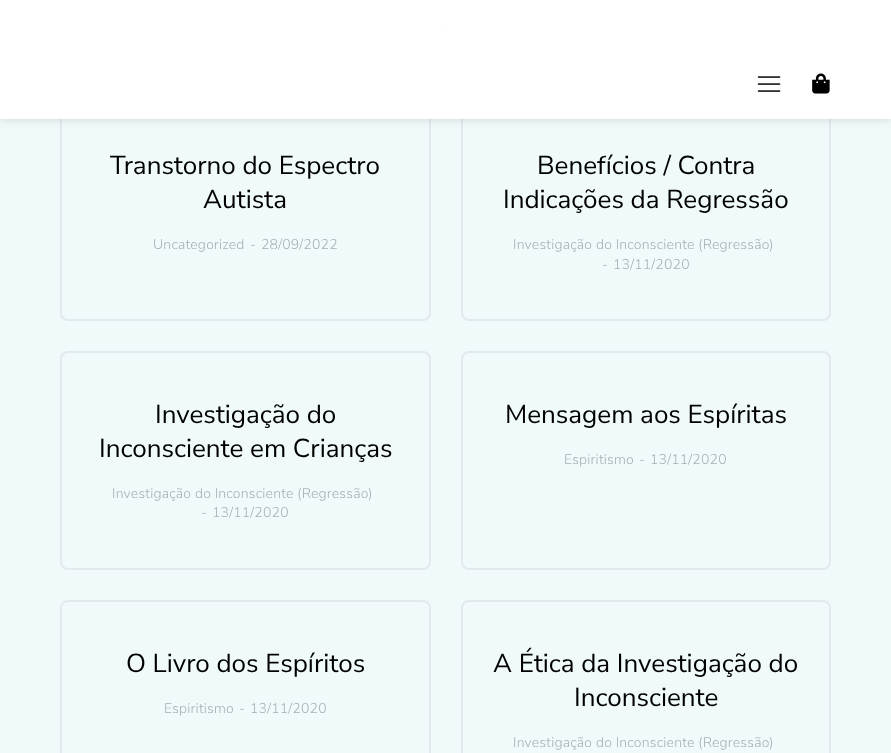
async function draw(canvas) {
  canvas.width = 891;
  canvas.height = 753;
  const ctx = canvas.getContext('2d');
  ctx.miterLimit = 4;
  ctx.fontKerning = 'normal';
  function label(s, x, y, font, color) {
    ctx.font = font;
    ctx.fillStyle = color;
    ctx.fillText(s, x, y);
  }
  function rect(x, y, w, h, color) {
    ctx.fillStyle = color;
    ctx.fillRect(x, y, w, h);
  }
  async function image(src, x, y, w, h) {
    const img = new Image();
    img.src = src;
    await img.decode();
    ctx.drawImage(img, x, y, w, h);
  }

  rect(0, 0, 891, 753, '#f1fafb');
  ctx.beginPath();
  ctx.roundRect(61, 103, 369, 217, 7);
  ctx.strokeStyle = '#e2e9ef';
  ctx.lineWidth = 2;
  ctx.stroke();
  ctx.beginPath();
  ctx.roundRect(462, 103, 368, 217, 7);
  ctx.stroke();
  ctx.fillStyle = '#00000026';
  ctx.filter = 'blur(5px)';
  ctx.beginPath();
  ctx.rect(0, 0, 891, 119);
  ctx.fill();
  ctx.filter = 'none';
  rect(0, 0, 891, 119, '#fff');
  rect(445, 25, 1, 1, '#e7eaec');
  await image('assets/img1.png', 757, 76, 24, 16);
  await image('assets/img2.png', 812, 73, 18, 21);
  label('Transtorno do Espectro', 110, 174, '26px Nunito Sans', '#000');
  label('Autista', 203, 208, '26px Nunito Sans', '#000');
  ctx.letterSpacing = '0.2px';
  label('Uncategorized', 153, 249, '300 14px Nunito Sans', '#a6afb3');
  label('-', 250, 249, '300 14px Nunito Sans', '#a6afb3');
  label('28/09/2022', 261, 249, '300 14px Nunito Sans', '#a6afb3');
  ctx.letterSpacing = '0px';
  label('Benefícios / Contra', 537, 174, '26px Nunito Sans', '#000');
  label('Indicações da Regressão', 503, 208, '26px Nunito Sans', '#000');
  ctx.letterSpacing = '0.2px';
  label('Investigação do Inconsciente (Regressão)', 513, 249, '300 14px Nunito Sans', '#a6afb3');
  label('-', 602, 269, '300 14px Nunito Sans', '#a6afb3');
  label('13/11/2020', 613, 269, '300 14px Nunito Sans', '#a6afb3');
  ctx.beginPath();
  ctx.roundRect(61, 352, 369, 217, 7);
  ctx.stroke();
  ctx.letterSpacing = '0px';
  label('Investigação do', 155, 423, '26px Nunito Sans', '#000');
  label('Inconsciente em Crianças', 99, 457, '26px Nunito Sans', '#000');
  ctx.letterSpacing = '0.2px';
  label('Investigação do Inconsciente (Regressão)', 112, 498, '300 14px Nunito Sans', '#a6afb3');
  label('-', 201, 517, '300 14px Nunito Sans', '#a6afb3');
  label('13/11/2020', 212, 517, '300 14px Nunito Sans', '#a6afb3');
  ctx.beginPath();
  ctx.roundRect(462, 352, 368, 217, 7);
  ctx.stroke();
  ctx.letterSpacing = '0px';
  label('Mensagem aos Espíritas', 505, 423, '26px Nunito Sans', '#000');
  ctx.letterSpacing = '0.2px';
  label('Espiritismo', 564, 464, '300 14px Nunito Sans', '#a6afb3');
  label('-', 639, 464, '300 14px Nunito Sans', '#a6afb3');
  label('13/11/2020', 650, 464, '300 14px Nunito Sans', '#a6afb3');
  ctx.beginPath();
  ctx.roundRect(61, 601, 369, 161, 7);
  ctx.stroke();
  ctx.letterSpacing = '0px';
  label('O Livro dos Espíritos', 126, 672, '26px Nunito Sans', '#000');
  ctx.letterSpacing = '0.2px';
  label('Espiritismo', 164, 713, '300 14px Nunito Sans', '#a6afb3');
  label('-', 239, 713, '300 14px Nunito Sans', '#a6afb3');
  label('13/11/2020', 250, 713, '300 14px Nunito Sans', '#a6afb3');
  ctx.beginPath();
  ctx.roundRect(462, 601, 368, 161, 7);
  ctx.stroke();
  ctx.letterSpacing = '0px';
  label('A Ética da Investigação do', 493, 672, '26px Nunito Sans', '#000');
  label('Inconsciente', 574, 706, '26px Nunito Sans', '#000');
  ctx.letterSpacing = '0.2px';
  label('Investigação do Inconsciente (Regressão)', 513, 747, '300 14px Nunito Sans', '#a6afb3');
}

draw(document.querySelector('canvas'));
